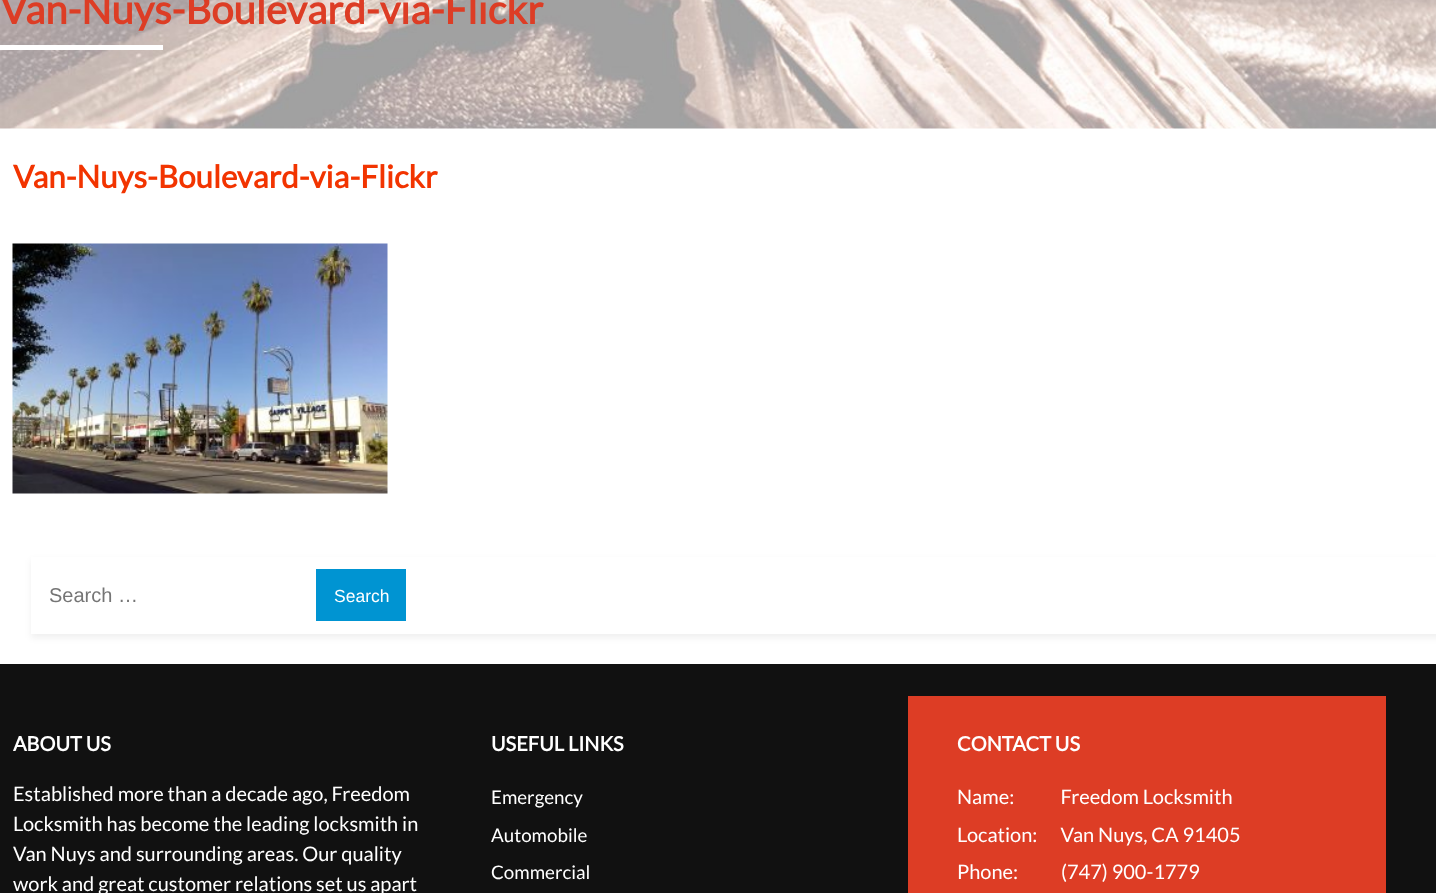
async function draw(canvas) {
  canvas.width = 1436;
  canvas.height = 893;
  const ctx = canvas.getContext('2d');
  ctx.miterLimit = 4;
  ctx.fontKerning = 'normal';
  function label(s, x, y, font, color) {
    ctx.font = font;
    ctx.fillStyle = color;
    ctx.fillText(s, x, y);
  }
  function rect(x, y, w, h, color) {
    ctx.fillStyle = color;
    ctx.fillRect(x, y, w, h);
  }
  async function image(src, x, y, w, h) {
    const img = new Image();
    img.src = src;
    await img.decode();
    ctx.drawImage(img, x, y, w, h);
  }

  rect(0, 0, 1436, 893, '#fff');
  await image('assets/img1.png', 0, 0, 1436, 129);
  label('Van-Nuys-Boulevard-via-Flickr', 0, 24, 'bold 40px Lato', '#dd3d25');
  rect(0, 45, 163, 5, '#fff');
  label('Van-Nuys-Boulevard-via-Flickr', 13, 188, 'bold 31.25px Lato', '#f23400');
  await image('assets/img2.png', 12, 243, 376, 251);
  ctx.fillStyle = '#0000000f';
  ctx.filter = 'blur(3px)';
  ctx.beginPath();
  ctx.rect(31, 560, 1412, 78);
  ctx.fill();
  ctx.filter = 'none';
  rect(31, 557, 1405, 77, '#fff');
  label('Search …', 49, 602, '20px Liberation Sans', '#757575');
  rect(316, 569, 90, 52, '#0094d2');
  label('Search', 334, 602, '17.5px Liberation Sans', '#fff');
  rect(0, 664, 1436, 229, '#111');
  label('ABOUT US', 13, 751, 'bold 20px Lato', '#fff');
  label('Established more than a decade ago, Freedom', 13, 801, '20px Lato', '#fff');
  label('Locksmith has become the leading locksmith in', 13, 831, '20px Lato', '#fff');
  label('Van Nuys and surrounding areas. Our quality', 13, 861, '20px Lato', '#fff');
  label('work and great customer relations set us apart', 13, 891, '20px Lato', '#fff');
  label('USEFUL LINKS', 491, 751, 'bold 20px Lato', '#fff');
  label('Emergency', 491, 804, '18.75px Lato', '#fff');
  label('Automobile', 491, 842, '18.75px Lato', '#fff');
  label('Commercial', 491, 879, '18.75px Lato', '#fff');
  rect(908, 696, 478, 197, '#dd3d25');
  label('CONTACT US', 957, 751, 'bold 20px Lato', '#fff');
  label('Name:            Freedom Locksmith', 957, 804, '20px Lato', '#fff');
  label('Location:      Van Nuys, CA 91405', 957, 842, '20px Lato', '#fff');
  label('Phone:', 957, 879, '20px Lato', '#fff');
  label('(747) 900-1779', 1061, 879, '20px Lato', '#fff');
}

draw(document.querySelector('canvas'));
